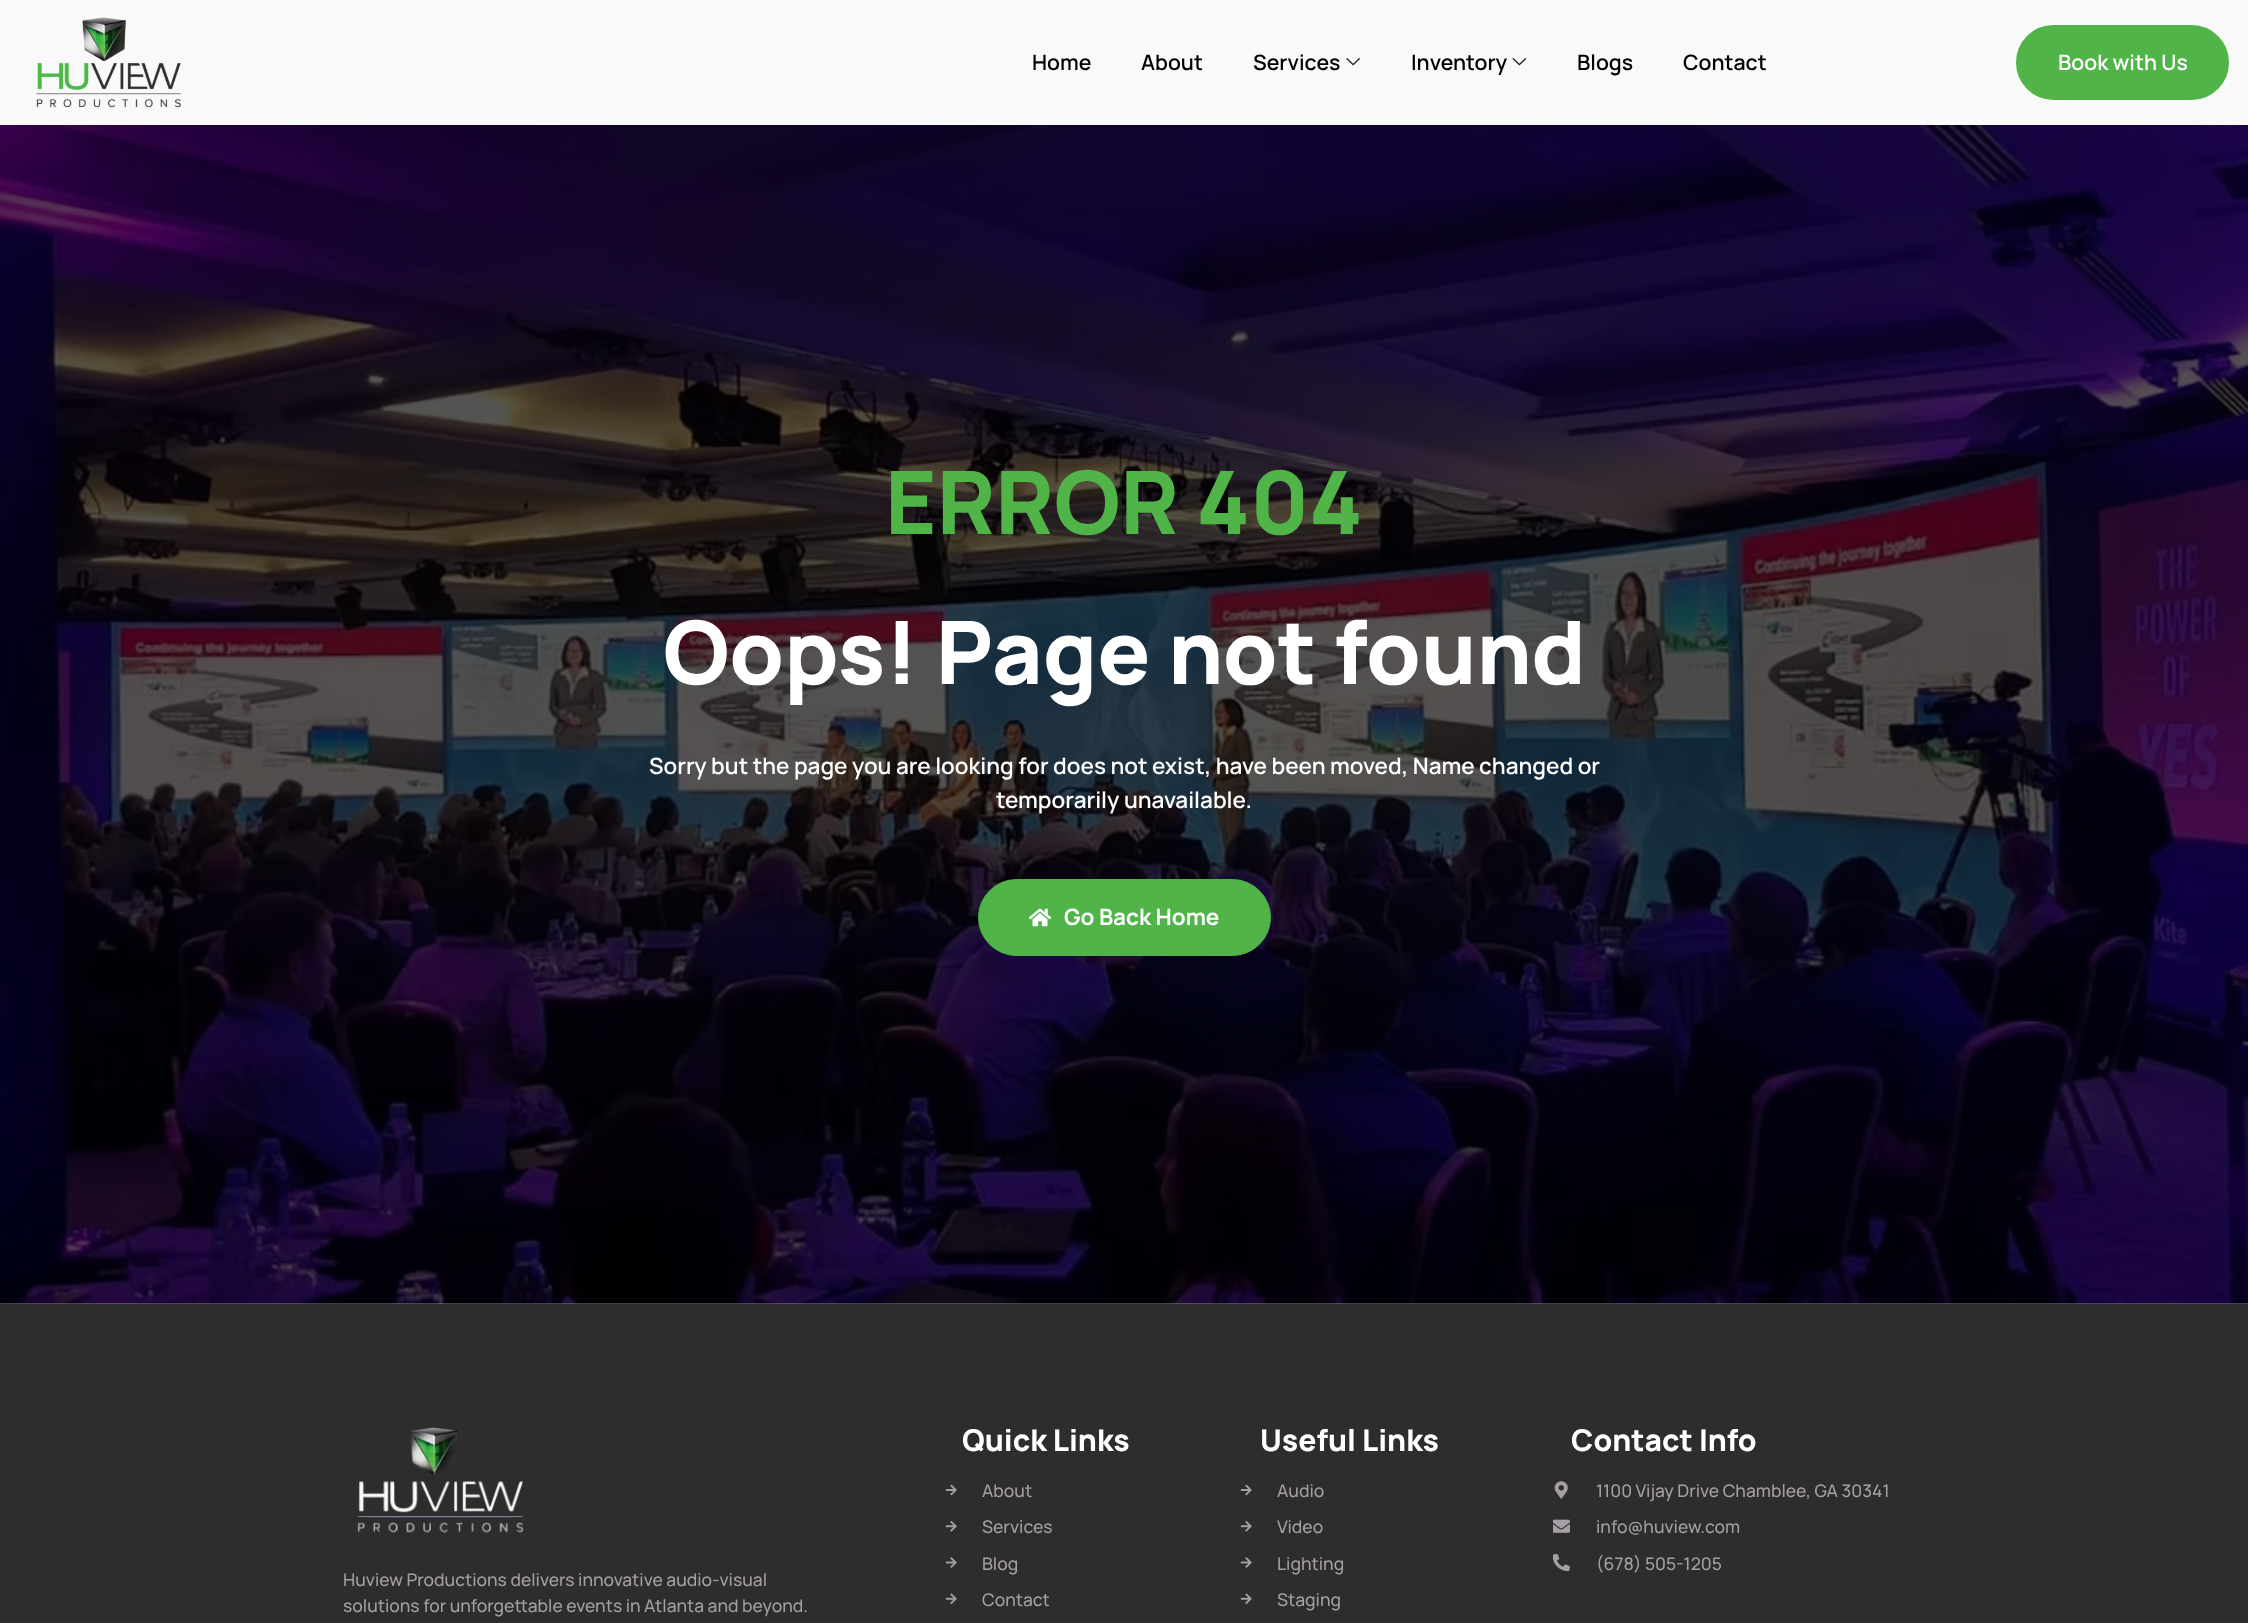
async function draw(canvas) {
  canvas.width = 2248;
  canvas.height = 1623;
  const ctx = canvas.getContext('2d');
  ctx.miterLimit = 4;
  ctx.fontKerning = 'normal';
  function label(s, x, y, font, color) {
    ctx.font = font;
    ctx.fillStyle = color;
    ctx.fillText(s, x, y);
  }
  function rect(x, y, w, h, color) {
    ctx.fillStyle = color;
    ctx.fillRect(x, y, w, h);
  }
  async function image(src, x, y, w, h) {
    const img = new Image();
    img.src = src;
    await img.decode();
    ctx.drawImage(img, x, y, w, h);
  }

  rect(0, 0, 2248, 1623, '#fff');
  rect(0, 0, 2248, 125, '#f9f9f9');
  await image('assets/img1.png', 36, 17, 145, 91);
  label('Home', 1032, 70, '600 21.25px Manrope', '#000');
  label('About', 1141, 70, '600 21.25px Manrope', '#000');
  label('Services', 1253, 70, '600 21.25px Manrope', '#000');
  await image('assets/img2.png', 1346, 58, 14, 8);
  label('Inventory', 1411, 70, '600 21.25px Manrope', '#000');
  await image('assets/img3.png', 1512, 58, 15, 8);
  label('Blogs', 1577, 70, '600 21.25px Manrope', '#000');
  label('Contact', 1683, 70, '600 21.25px Manrope', '#000');
  ctx.fillStyle = '#50b448';
  ctx.beginPath();
  ctx.roundRect(2018, 27, 209, 71, 35.5);
  ctx.fill();
  ctx.strokeStyle = '#50b448';
  ctx.lineWidth = 4;
  ctx.stroke();
  label('Book with Us', 2058, 70, '600 21.25px Manrope', '#fff');
  await image('assets/img4.png', 0, 125, 2248, 1179);
  label('ERROR 404', 885, 534, '800 87.5px Manrope', '#50b448');
  label('Oops! Page not found', 663, 684, '800 87.5px Manrope', '#fff');
  label('Sorry but the page you are looking for does not exist, have been moved, Name changed or', 649, 774, '600 22.5px Manrope', '#fff');
  label('temporarily unavailable.', 996, 808, '600 22.5px Manrope', '#fff');
  ctx.fillStyle = '#50b448';
  ctx.beginPath();
  ctx.roundRect(978.5, 879.5, 292, 76, 38);
  ctx.fill();
  ctx.lineWidth = 1;
  ctx.stroke();
  await image('assets/img5.png', 1029, 908, 22, 19);
  label('Go Back Home', 1064, 925, 'bold 22.5px Manrope', '#fff');
  rect(0, 1304, 2248, 319, '#2d2d2d');
  label('Quick Links', 962, 1451, '800 30px Manrope', '#fff');
  await image('assets/img6.png', 945, 1484, 12, 12);
  label('About', 982, 1497, '500 17.5px Manrope', '#a69ea5');
  await image('assets/img7.png', 945, 1521, 12, 11);
  label('Services', 982, 1533, '500 17.5px Manrope', '#a69ea5');
  await image('assets/img8.png', 945, 1557, 12, 11);
  label('Blog', 982, 1570, '500 17.5px Manrope', '#a69ea5');
  await image('assets/img9.png', 945, 1593, 12, 11);
  label('Contact', 982, 1606, '500 17.5px Manrope', '#a69ea5');
  label('Useful Links', 1260, 1451, '800 30px Manrope', '#fff');
  await image('assets/img6.png', 1240, 1484, 12, 12);
  label('Audio', 1277, 1497, '500 17.5px Manrope', '#a69ea5');
  await image('assets/img7.png', 1240, 1521, 12, 11);
  label('Video', 1277, 1533, '500 17.5px Manrope', '#a69ea5');
  await image('assets/img8.png', 1240, 1557, 12, 11);
  label('Lighting', 1277, 1570, '500 17.5px Manrope', '#a69ea5');
  await image('assets/img9.png', 1240, 1593, 12, 11);
  label('Staging', 1277, 1606, '500 17.5px Manrope', '#a69ea5');
  label('Contact Info', 1571, 1451, '800 30px Manrope', '#fff');
  await image('assets/img10.png', 1554, 1481, 14, 18);
  label('1100 Vijay Drive Chamblee, GA 30341', 1596, 1497, '500 17.5px Manrope', '#a69ea5');
  await image('assets/img11.png', 1553, 1519, 17, 14);
  label('info@huview.com', 1596, 1533, '500 17.5px Manrope', '#a69ea5');
  await image('assets/img12.png', 1553, 1554, 17, 17);
  label('(678) 505-1205', 1596, 1570, '500 17.5px Manrope', '#a69ea5');
  await image('assets/img13.png', 357, 1427, 167, 106);
  label('Huview Productions delivers innovative audio-visual', 343, 1586, '500 17.5px Manrope', '#a69ea5');
  label('solutions for unforgettable events in Atlanta and beyond.', 343, 1612, '500 17.5px Manrope', '#a69ea5');
}

draw(document.querySelector('canvas'));
